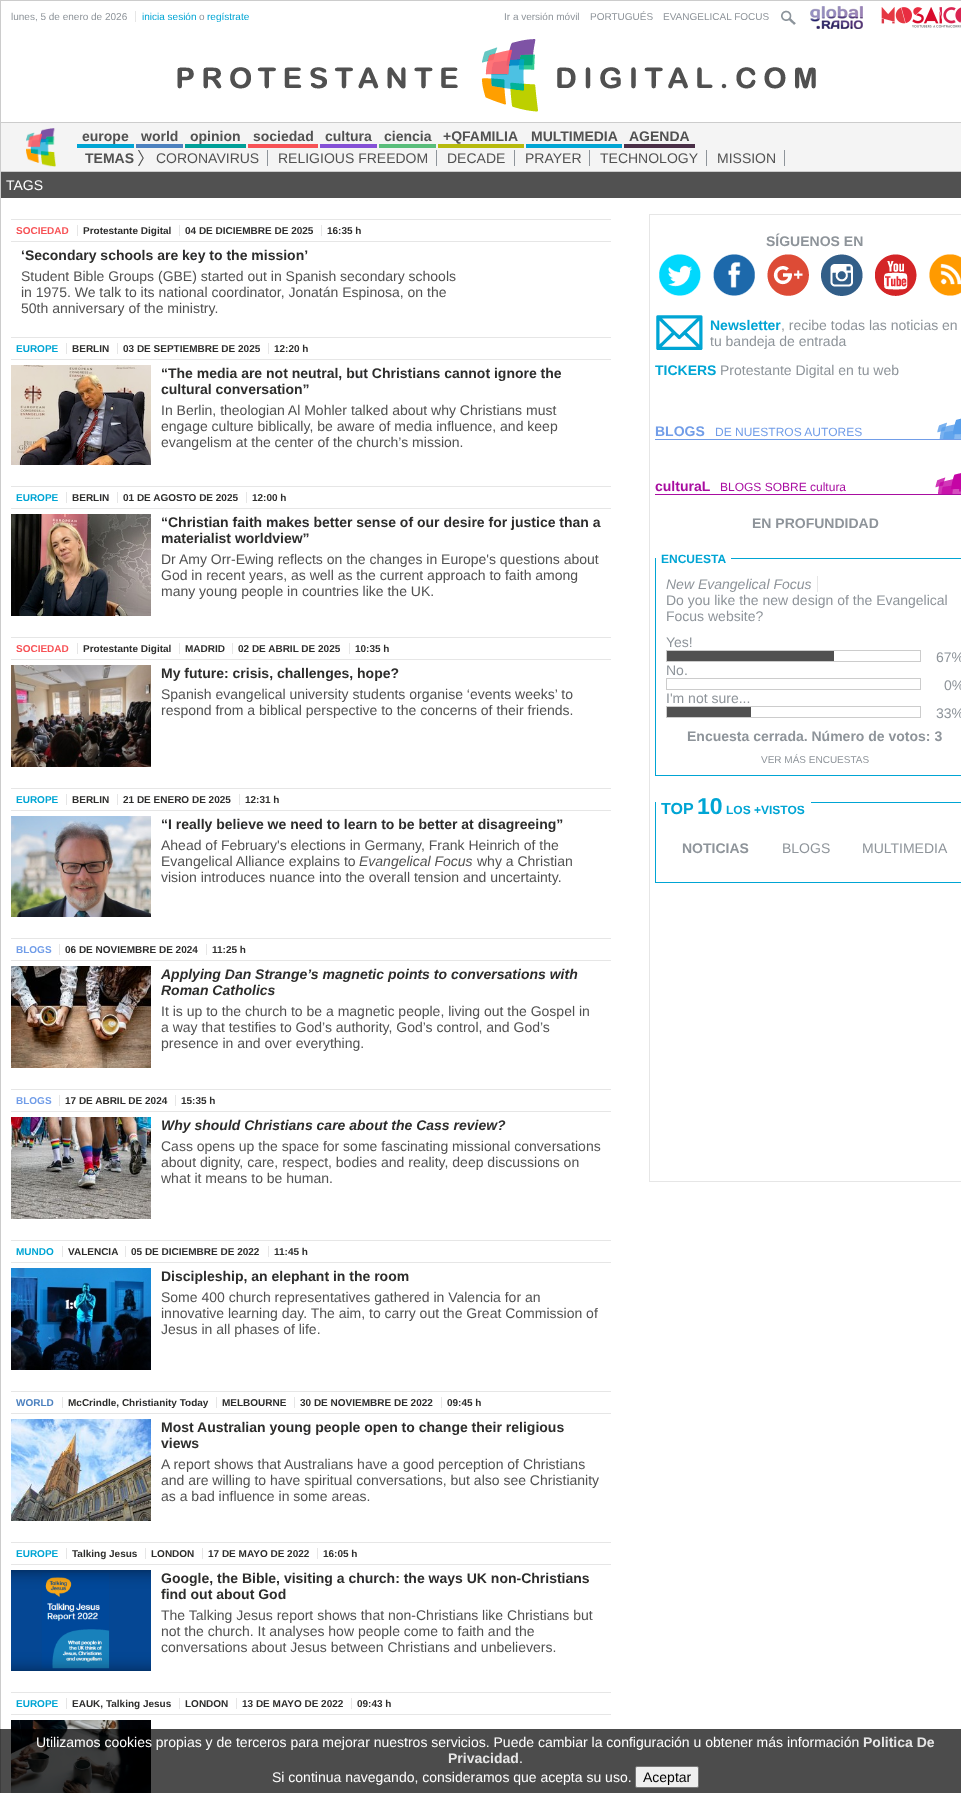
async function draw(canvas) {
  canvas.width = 961;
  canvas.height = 1793;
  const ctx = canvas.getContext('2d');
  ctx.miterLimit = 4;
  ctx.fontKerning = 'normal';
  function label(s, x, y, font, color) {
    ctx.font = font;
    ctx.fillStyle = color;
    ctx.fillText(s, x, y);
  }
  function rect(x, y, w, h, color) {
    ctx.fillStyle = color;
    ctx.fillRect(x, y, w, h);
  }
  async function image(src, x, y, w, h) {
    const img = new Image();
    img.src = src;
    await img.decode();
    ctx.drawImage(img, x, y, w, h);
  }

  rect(0, 0, 961, 1793, '#fff');
  ctx.strokeStyle = '#ccc';
  ctx.strokeRect(0.5, 0.5, 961, 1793);
  label('lunes, 5 de enero de 2026', 11, 20, '10px Liberation Sans', '#8e949a');
  rect(135, 11, 1, 11, '#e6e6e6');
  label('inicia sesión', 142, 20, '10px Liberation Sans', '#00a5d4');
  label('o', 199, 20, '10px Liberation Sans', '#8e949a');
  label('regístrate', 207, 20, '10px Liberation Sans', '#00a5d4');
  label('Ir a versión móvil', 504, 20, '10px Liberation Sans', '#8e949a');
  label('PORTUGUÉS', 590, 20, '10px Liberation Sans', '#8e949a');
  label('EVANGELICAL FOCUS', 663, 20, '10px Liberation Sans', '#8e949a');
  await image('assets/img1.png', 781, 10, 15, 15);
  await image('assets/img2.png', 810, 6, 53, 23);
  await image('assets/img3.png', 881, 7, 80, 21);
  await image('assets/img4.png', 177, 39, 639, 73);
  rect(1, 123, 960, 48, '#f4f4f4');
  rect(1, 122, 960, 1, '#ccc');
  rect(1, 171, 960, 1, '#ccc');
  await image('assets/img5.png', 26, 128, 30, 39);
  rect(77, 144, 57, 4, '#00a5d4');
  label('europe', 82, 141, 'bold 14px Liberation Sans', '#515151');
  rect(136, 144, 47, 4, '#4c81bf');
  label('world', 141, 141, 'bold 14px Liberation Sans', '#515151');
  rect(185, 144, 61, 4, '#009f98');
  label('opinion', 190, 141, 'bold 14px Liberation Sans', '#515151');
  rect(248, 144, 70, 4, '#f75256');
  label('sociedad', 253, 141, 'bold 14px Liberation Sans', '#515151');
  rect(320, 144, 57, 4, '#8450d6');
  label('cultura', 325, 141, 'bold 14px Liberation Sans', '#515151');
  rect(379, 144, 57, 4, '#59bd7a');
  label('ciencia', 384, 141, 'bold 14px Liberation Sans', '#515151');
  rect(438, 144, 86, 4, '#b6ba0d');
  label('+QFAMILIA', 443, 141, 'bold 14px Liberation Sans', '#515151');
  rect(526, 144, 96, 4, '#00a5d4');
  label('MULTIMEDIA', 531, 141, 'bold 14px Liberation Sans', '#515151');
  rect(624, 144, 71, 4, '#4a2f47');
  label('AGENDA', 629, 141, 'bold 14px Liberation Sans', '#515151');
  await image('assets/img6.png', 138, 150, 6, 16);
  label('TEMAS', 85, 163, 'bold 14px Liberation Sans', '#515151');
  rect(267, 150, 1, 16, '#8e949a');
  label('CORONAVIRUS', 156, 163, '14px Liberation Sans', '#515151');
  rect(436, 150, 1, 16, '#8e949a');
  label('RELIGIOUS FREEDOM', 278, 163, '14px Liberation Sans', '#515151');
  rect(514, 150, 1, 16, '#8e949a');
  label('DECADE', 447, 163, '14px Liberation Sans', '#515151');
  rect(589, 150, 1, 16, '#8e949a');
  label('PRAYER', 525, 163, '14px Liberation Sans', '#515151');
  rect(706, 150, 1, 16, '#8e949a');
  label('TECHNOLOGY', 600, 163, '14px Liberation Sans', '#515151');
  rect(784, 150, 1, 16, '#8e949a');
  label('MISSION', 717, 163, '14px Liberation Sans', '#515151');
  rect(1, 172, 960, 26, '#515151');
  label('TAGS', 6, 190, '14px Liberation Sans', '#fff');
  rect(11, 219, 600, 1, '#e6e6e6');
  rect(11, 241, 600, 1, '#e6e6e6');
  label('SOCIEDAD', 16, 234, 'bold 10px Liberation Sans', '#f75256');
  rect(77, 225, 1, 11, '#e6e6e6');
  label('Protestante Digital', 83, 234, 'bold 10px Liberation Sans', '#2d2d2c');
  rect(179, 225, 1, 11, '#e6e6e6');
  label('04 DE DICIEMBRE DE 2025', 185, 234, 'bold 10px Liberation Sans', '#2d2d2c');
  rect(321, 225, 1, 11, '#e6e6e6');
  label('16:35 h', 327, 234, 'bold 10px Liberation Sans', '#2d2d2c');
  label('‘Secondary schools are key to the mission’', 21, 260, 'bold 14px Liberation Sans', '#2d2d2c');
  label('Student Bible Groups (GBE) started out in Spanish secondary schools', 21, 281, '14px Liberation Sans', '#515151');
  label('in 1975. We talk to its national coordinator, Jonatán Espinosa, on the', 21, 297, '14px Liberation Sans', '#515151');
  label('50th anniversary of the ministry.', 21, 313, '14px Liberation Sans', '#515151');
  rect(11, 337, 600, 1, '#e6e6e6');
  rect(11, 359, 600, 1, '#e6e6e6');
  label('EUROPE', 16, 352, 'bold 10px Liberation Sans', '#00a5d4');
  rect(66, 343, 1, 11, '#e6e6e6');
  label('BERLIN', 72, 352, 'bold 10px Liberation Sans', '#2d2d2c');
  rect(117, 343, 1, 11, '#e6e6e6');
  label('03 DE SEPTIEMBRE DE 2025', 123, 352, 'bold 10px Liberation Sans', '#2d2d2c');
  rect(268, 343, 1, 11, '#e6e6e6');
  label('12:20 h', 274, 352, 'bold 10px Liberation Sans', '#2d2d2c');
  await image('assets/img7.png', 11, 365, 140, 100);
  label('“The media are not neutral, but Christians cannot ignore the', 161, 378, 'bold 14px Liberation Sans', '#2d2d2c');
  label('cultural conversation”', 161, 394, 'bold 14px Liberation Sans', '#2d2d2c');
  label('In Berlin, theologian Al Mohler talked about why Christians must', 161, 415, '14px Liberation Sans', '#515151');
  label('engage culture biblically, be aware of media influence, and keep', 161, 431, '14px Liberation Sans', '#515151');
  label('evangelism at the center of the church’s mission.', 161, 447, '14px Liberation Sans', '#515151');
  rect(11, 486, 600, 1, '#e6e6e6');
  rect(11, 508, 600, 1, '#e6e6e6');
  label('EUROPE', 16, 501, 'bold 10px Liberation Sans', '#00a5d4');
  rect(66, 492, 1, 11, '#e6e6e6');
  label('BERLIN', 72, 501, 'bold 10px Liberation Sans', '#2d2d2c');
  rect(117, 492, 1, 11, '#e6e6e6');
  label('01 DE AGOSTO DE 2025', 123, 501, 'bold 10px Liberation Sans', '#2d2d2c');
  rect(246, 492, 1, 11, '#e6e6e6');
  label('12:00 h', 252, 501, 'bold 10px Liberation Sans', '#2d2d2c');
  await image('assets/img8.png', 11, 514, 140, 102);
  label('“Christian faith makes better sense of our desire for justice than a', 161, 527, 'bold 14px Liberation Sans', '#2d2d2c');
  label('materialist worldview”', 161, 543, 'bold 14px Liberation Sans', '#2d2d2c');
  label('Dr Amy Orr-Ewing reflects on the changes in Europe\'s questions about', 161, 564, '14px Liberation Sans', '#515151');
  label('God in recent years, as well as the current approach to faith among', 161, 580, '14px Liberation Sans', '#515151');
  label('many young people in countries like the UK.', 161, 596, '14px Liberation Sans', '#515151');
  rect(11, 637, 600, 1, '#e6e6e6');
  rect(11, 659, 600, 1, '#e6e6e6');
  label('SOCIEDAD', 16, 652, 'bold 10px Liberation Sans', '#f75256');
  rect(77, 643, 1, 11, '#e6e6e6');
  label('Protestante Digital', 83, 652, 'bold 10px Liberation Sans', '#2d2d2c');
  rect(179, 643, 1, 11, '#e6e6e6');
  label('MADRID', 185, 652, 'bold 10px Liberation Sans', '#2d2d2c');
  rect(232, 643, 1, 11, '#e6e6e6');
  label('02 DE ABRIL DE 2025', 238, 652, 'bold 10px Liberation Sans', '#2d2d2c');
  rect(349, 643, 1, 11, '#e6e6e6');
  label('10:35 h', 355, 652, 'bold 10px Liberation Sans', '#2d2d2c');
  await image('assets/img9.png', 11, 665, 140, 102);
  label('My future: crisis, challenges, hope?', 161, 678, 'bold 14px Liberation Sans', '#2d2d2c');
  label('Spanish evangelical university students organise ‘events weeks’ to', 161, 699, '14px Liberation Sans', '#515151');
  label('respond from a biblical perspective to the concerns of their friends.', 161, 715, '14px Liberation Sans', '#515151');
  rect(11, 788, 600, 1, '#e6e6e6');
  rect(11, 810, 600, 1, '#e6e6e6');
  label('EUROPE', 16, 803, 'bold 10px Liberation Sans', '#00a5d4');
  rect(66, 794, 1, 11, '#e6e6e6');
  label('BERLIN', 72, 803, 'bold 10px Liberation Sans', '#2d2d2c');
  rect(117, 794, 1, 11, '#e6e6e6');
  label('21 DE ENERO DE 2025', 123, 803, 'bold 10px Liberation Sans', '#2d2d2c');
  rect(239, 794, 1, 11, '#e6e6e6');
  label('12:31 h', 245, 803, 'bold 10px Liberation Sans', '#2d2d2c');
  await image('assets/img10.png', 11, 816, 140, 101);
  label('“I really believe we need to learn to be better at disagreeing”', 161, 829, 'bold 14px Liberation Sans', '#2d2d2c');
  label('Ahead of February\'s elections in Germany, Frank Heinrich of the', 161, 850, '14px Liberation Sans', '#515151');
  label('Evangelical Alliance explains to', 161, 866, '14px Liberation Sans', '#515151');
  label('Evangelical Focus', 359, 866, 'italic 14px Liberation Sans', '#515151');
  label('why a Christian', 477, 866, '14px Liberation Sans', '#515151');
  label('vision introduces nuance into the overall tension and uncertainty.', 161, 882, '14px Liberation Sans', '#515151');
  rect(11, 938, 600, 1, '#e6e6e6');
  rect(11, 960, 600, 1, '#e6e6e6');
  label('BLOGS', 16, 953, 'bold 10px Liberation Sans', '#719de8');
  rect(59, 944, 1, 11, '#e6e6e6');
  label('06 DE NOVIEMBRE DE 2024', 65, 953, 'bold 10px Liberation Sans', '#2d2d2c');
  rect(206, 944, 1, 11, '#e6e6e6');
  label('11:25 h', 212, 953, 'bold 10px Liberation Sans', '#2d2d2c');
  await image('assets/img11.png', 11, 966, 140, 102);
  label('Applying Dan Strange’s magnetic points to conversations with', 161, 979, 'italic bold 14px Liberation Sans', '#2d2d2c');
  label('Roman Catholics', 161, 995, 'italic bold 14px Liberation Sans', '#2d2d2c');
  label('It is up to the church to be a magnetic people, living out the Gospel in', 161, 1016, '14px Liberation Sans', '#515151');
  label('a way that testifies to God’s authority, God’s control, and God’s', 161, 1032, '14px Liberation Sans', '#515151');
  label('presence in and over everything.', 161, 1048, '14px Liberation Sans', '#515151');
  rect(11, 1089, 600, 1, '#e6e6e6');
  rect(11, 1111, 600, 1, '#e6e6e6');
  label('BLOGS', 16, 1104, 'bold 10px Liberation Sans', '#719de8');
  rect(59, 1095, 1, 11, '#e6e6e6');
  label('17 DE ABRIL DE 2024', 65, 1104, 'bold 10px Liberation Sans', '#2d2d2c');
  rect(175, 1095, 1, 11, '#e6e6e6');
  label('15:35 h', 181, 1104, 'bold 10px Liberation Sans', '#2d2d2c');
  await image('assets/img12.png', 11, 1117, 140, 102);
  label('Why should Christians care about the Cass review?', 161, 1130, 'italic bold 14px Liberation Sans', '#2d2d2c');
  label('Cass opens up the space for some fascinating missional conversations', 161, 1151, '14px Liberation Sans', '#515151');
  label('about dignity, care, respect, bodies and reality, deep discussions on', 161, 1167, '14px Liberation Sans', '#515151');
  label('what it means to be human.', 161, 1183, '14px Liberation Sans', '#515151');
  rect(11, 1240, 600, 1, '#e6e6e6');
  rect(11, 1262, 600, 1, '#e6e6e6');
  label('MUNDO', 16, 1255, 'bold 10px Liberation Sans', '#00a5d4');
  rect(62, 1246, 1, 11, '#e6e6e6');
  label('VALENCIA', 68, 1255, 'bold 10px Liberation Sans', '#2d2d2c');
  rect(125, 1246, 1, 11, '#e6e6e6');
  label('05 DE DICIEMBRE DE 2022', 131, 1255, 'bold 10px Liberation Sans', '#2d2d2c');
  rect(268, 1246, 1, 11, '#e6e6e6');
  label('11:45 h', 274, 1255, 'bold 10px Liberation Sans', '#2d2d2c');
  await image('assets/img13.png', 11, 1268, 140, 102);
  label('Discipleship, an elephant in the room', 161, 1281, 'bold 14px Liberation Sans', '#2d2d2c');
  label('Some 400 church representatives gathered in Valencia for an', 161, 1302, '14px Liberation Sans', '#515151');
  label('innovative learning day. The aim, to carry out the Great Commission of', 161, 1318, '14px Liberation Sans', '#515151');
  label('Jesus in all phases of life.', 161, 1334, '14px Liberation Sans', '#515151');
  rect(11, 1391, 600, 1, '#e6e6e6');
  rect(11, 1413, 600, 1, '#e6e6e6');
  label('WORLD', 16, 1406, 'bold 10px Liberation Sans', '#4c81bf');
  rect(62, 1397, 1, 11, '#e6e6e6');
  label('McCrindle, Christianity Today', 68, 1406, 'bold 10px Liberation Sans', '#2d2d2c');
  rect(216, 1397, 1, 11, '#e6e6e6');
  label('MELBOURNE', 222, 1406, 'bold 10px Liberation Sans', '#2d2d2c');
  rect(294, 1397, 1, 11, '#e6e6e6');
  label('30 DE NOVIEMBRE DE 2022', 300, 1406, 'bold 10px Liberation Sans', '#2d2d2c');
  rect(441, 1397, 1, 11, '#e6e6e6');
  label('09:45 h', 447, 1406, 'bold 10px Liberation Sans', '#2d2d2c');
  await image('assets/img14.png', 11, 1419, 140, 102);
  label('Most Australian young people open to change their religious', 161, 1432, 'bold 14px Liberation Sans', '#2d2d2c');
  label('views', 161, 1448, 'bold 14px Liberation Sans', '#2d2d2c');
  label('A report shows that Australians have a good perception of Christians', 161, 1469, '14px Liberation Sans', '#515151');
  label('and are willing to have spiritual conversations, but also see Christianity', 161, 1485, '14px Liberation Sans', '#515151');
  label('as a bad influence in some areas.', 161, 1501, '14px Liberation Sans', '#515151');
  rect(11, 1542, 600, 1, '#e6e6e6');
  rect(11, 1564, 600, 1, '#e6e6e6');
  label('EUROPE', 16, 1557, 'bold 10px Liberation Sans', '#00a5d4');
  rect(66, 1548, 1, 11, '#e6e6e6');
  label('Talking Jesus', 72, 1557, 'bold 10px Liberation Sans', '#2d2d2c');
  rect(145, 1548, 1, 11, '#e6e6e6');
  label('LONDON', 151, 1557, 'bold 10px Liberation Sans', '#2d2d2c');
  rect(202, 1548, 1, 11, '#e6e6e6');
  label('17 DE MAYO DE 2022', 208, 1557, 'bold 10px Liberation Sans', '#2d2d2c');
  rect(317, 1548, 1, 11, '#e6e6e6');
  label('16:05 h', 323, 1557, 'bold 10px Liberation Sans', '#2d2d2c');
  await image('assets/img15.png', 11, 1570, 140, 101);
  label('Google, the Bible, visiting a church: the ways UK non-Christians', 161, 1583, 'bold 14px Liberation Sans', '#2d2d2c');
  label('find out about God', 161, 1599, 'bold 14px Liberation Sans', '#2d2d2c');
  label('The Talking Jesus report shows that non-Christians like Christians but', 161, 1620, '14px Liberation Sans', '#515151');
  label('not the church. It analyses how people come to faith and the', 161, 1636, '14px Liberation Sans', '#515151');
  label('conversations about Jesus between Christians and unbelievers.', 161, 1652, '14px Liberation Sans', '#515151');
  rect(11, 1692, 600, 1, '#e6e6e6');
  rect(11, 1714, 600, 1, '#e6e6e6');
  label('EUROPE', 16, 1707, 'bold 10px Liberation Sans', '#00a5d4');
  rect(66, 1698, 1, 11, '#e6e6e6');
  label('EAUK, Talking Jesus', 72, 1707, 'bold 10px Liberation Sans', '#2d2d2c');
  rect(179, 1698, 1, 11, '#e6e6e6');
  label('LONDON', 185, 1707, 'bold 10px Liberation Sans', '#2d2d2c');
  rect(236, 1698, 1, 11, '#e6e6e6');
  label('13 DE MAYO DE 2022', 242, 1707, 'bold 10px Liberation Sans', '#2d2d2c');
  rect(351, 1698, 1, 11, '#e6e6e6');
  label('09:43 h', 357, 1707, 'bold 10px Liberation Sans', '#2d2d2c');
  await image('assets/img16.png', 11, 1720, 140, 73);
  ctx.strokeStyle = '#e6e6e6';
  ctx.strokeRect(649.5, 214.5, 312, 967);
  label('SÍGUENOS EN', 766, 246, 'bold 14px Liberation Sans', '#8e949a');
  await image('assets/img17.png', 659, 254, 42, 42);
  await image('assets/img18.png', 713, 254, 42, 42);
  await image('assets/img19.png', 767, 254, 42, 42);
  await image('assets/img20.png', 821, 254, 42, 42);
  await image('assets/img21.png', 875, 254, 42, 42);
  await image('assets/img22.png', 929, 254, 32, 42);
  await image('assets/img23.png', 656, 315, 47, 35);
  label('Newsletter', 710, 330, 'bold 14px Liberation Sans', '#00a5d4');
  label(', recibe todas las noticias en', 781, 330, '14px Liberation Sans', '#8e949a');
  label('tu bandeja de entrada', 710, 346, '14px Liberation Sans', '#8e949a');
  label('TICKERS', 655, 375, 'bold 14px Liberation Sans', '#00a5d4');
  label('Protestante Digital en tu web', 720, 375, '14px Liberation Sans', '#8e949a');
  rect(655, 439, 306, 1, '#719de8');
  label('BLOGS', 655, 436, 'bold 14px Liberation Sans', '#719de8');
  label('DE NUESTROS AUTORES', 715, 436, '12px Liberation Sans', '#719de8');
  await image('assets/img24.png', 937, 418, 24, 21);
  rect(655, 494, 306, 1, '#a80da0');
  label('culturaL', 655, 491, 'bold 14px Liberation Sans', '#a80da0');
  label('BLOGS SOBRE cultura', 720, 491, '12px Liberation Sans', '#a80da0');
  await image('assets/img25.png', 935, 473, 26, 21);
  label('EN PROFUNDIDAD', 752, 528, 'bold 14px Liberation Sans', '#8e949a');
  ctx.strokeStyle = '#00a5d4';
  ctx.strokeRect(655.5, 558.5, 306, 217);
  rect(656, 558, 75, 1, '#fff');
  label('ENCUESTA', 661, 563, 'bold 12px Liberation Sans', '#00a5d4');
  label('New Evangelical Focus', 666, 589, 'italic 14px Liberation Sans', '#8e949a');
  rect(817, 576, 1, 16, '#e6e6e6');
  label('Do you like the new design of the Evangelical', 666, 605, '14px Liberation Sans', '#8e949a');
  label('Focus website?', 666, 621, '14px Liberation Sans', '#8e949a');
  label('Yes!', 666, 647, '14px Liberation Sans', '#8e949a');
  ctx.strokeStyle = '#ccc';
  ctx.strokeRect(666.5, 650.5, 254, 11);
  rect(667, 651, 167, 10, '#515151');
  label('67%', 936, 662, '14px Liberation Sans', '#8e949a');
  label('No.', 666, 675, '14px Liberation Sans', '#8e949a');
  ctx.strokeRect(666.5, 678.5, 254, 11);
  label('0%', 944, 690, '14px Liberation Sans', '#8e949a');
  label('I\'m not sure...', 666, 703, '14px Liberation Sans', '#8e949a');
  ctx.strokeRect(666.5, 706.5, 254, 11);
  rect(667, 707, 84, 10, '#515151');
  label('33%', 936, 718, '14px Liberation Sans', '#8e949a');
  label('Encuesta cerrada. Número de votos: 3', 687, 741, 'bold 14px Liberation Sans', '#8e949a');
  label('VER MÁS ENCUESTAS', 761, 763, '10px Liberation Sans', '#8e949a');
  ctx.strokeStyle = '#00a5d4';
  ctx.strokeRect(655.5, 802.5, 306, 80);
  rect(656, 802, 155, 1, '#fff');
  label('TOP', 661, 814, 'bold 16px Liberation Sans', '#00a5d4');
  label('10', 697, 814, 'bold 23px Liberation Sans', '#00a5d4');
  label('LOS +VISTOS', 726, 814, 'bold 12px Liberation Sans', '#00a5d4');
  label('NOTICIAS', 682, 853, 'bold 14px Liberation Sans', '#8e949a');
  label('BLOGS', 782, 853, '14px Liberation Sans', '#8e949a');
  label('MULTIMEDIA', 862, 853, '14px Liberation Sans', '#8e949a');
  rect(0, 1729, 961, 64, '#000000b3');
  label('Utilizamos cookies propias y de terceros para mejorar nuestros servicios. Puede cambiar la configuración u obtener más información', 36, 1747, '14px Liberation Sans', '#fff');
  label('Politica De', 863, 1747, 'bold 14px Liberation Sans', '#e6e6e6');
  label('Privacidad', 448, 1763, 'bold 14px Liberation Sans', '#e6e6e6');
  label('.', 519, 1763, '14px Liberation Sans', '#fff');
  label('Si continua navegando, consideramos que acepta su uso.', 272, 1782, '14px Liberation Sans', '#fff');
  ctx.fillStyle = '#efefef';
  ctx.beginPath();
  ctx.roundRect(635.5, 1766.5, 63, 21, 1.5);
  ctx.fill();
  ctx.strokeStyle = '#767676';
  ctx.stroke();
  label('Aceptar', 643, 1782, '14px Liberation Sans', '#000');
}

draw(document.querySelector('canvas'));
